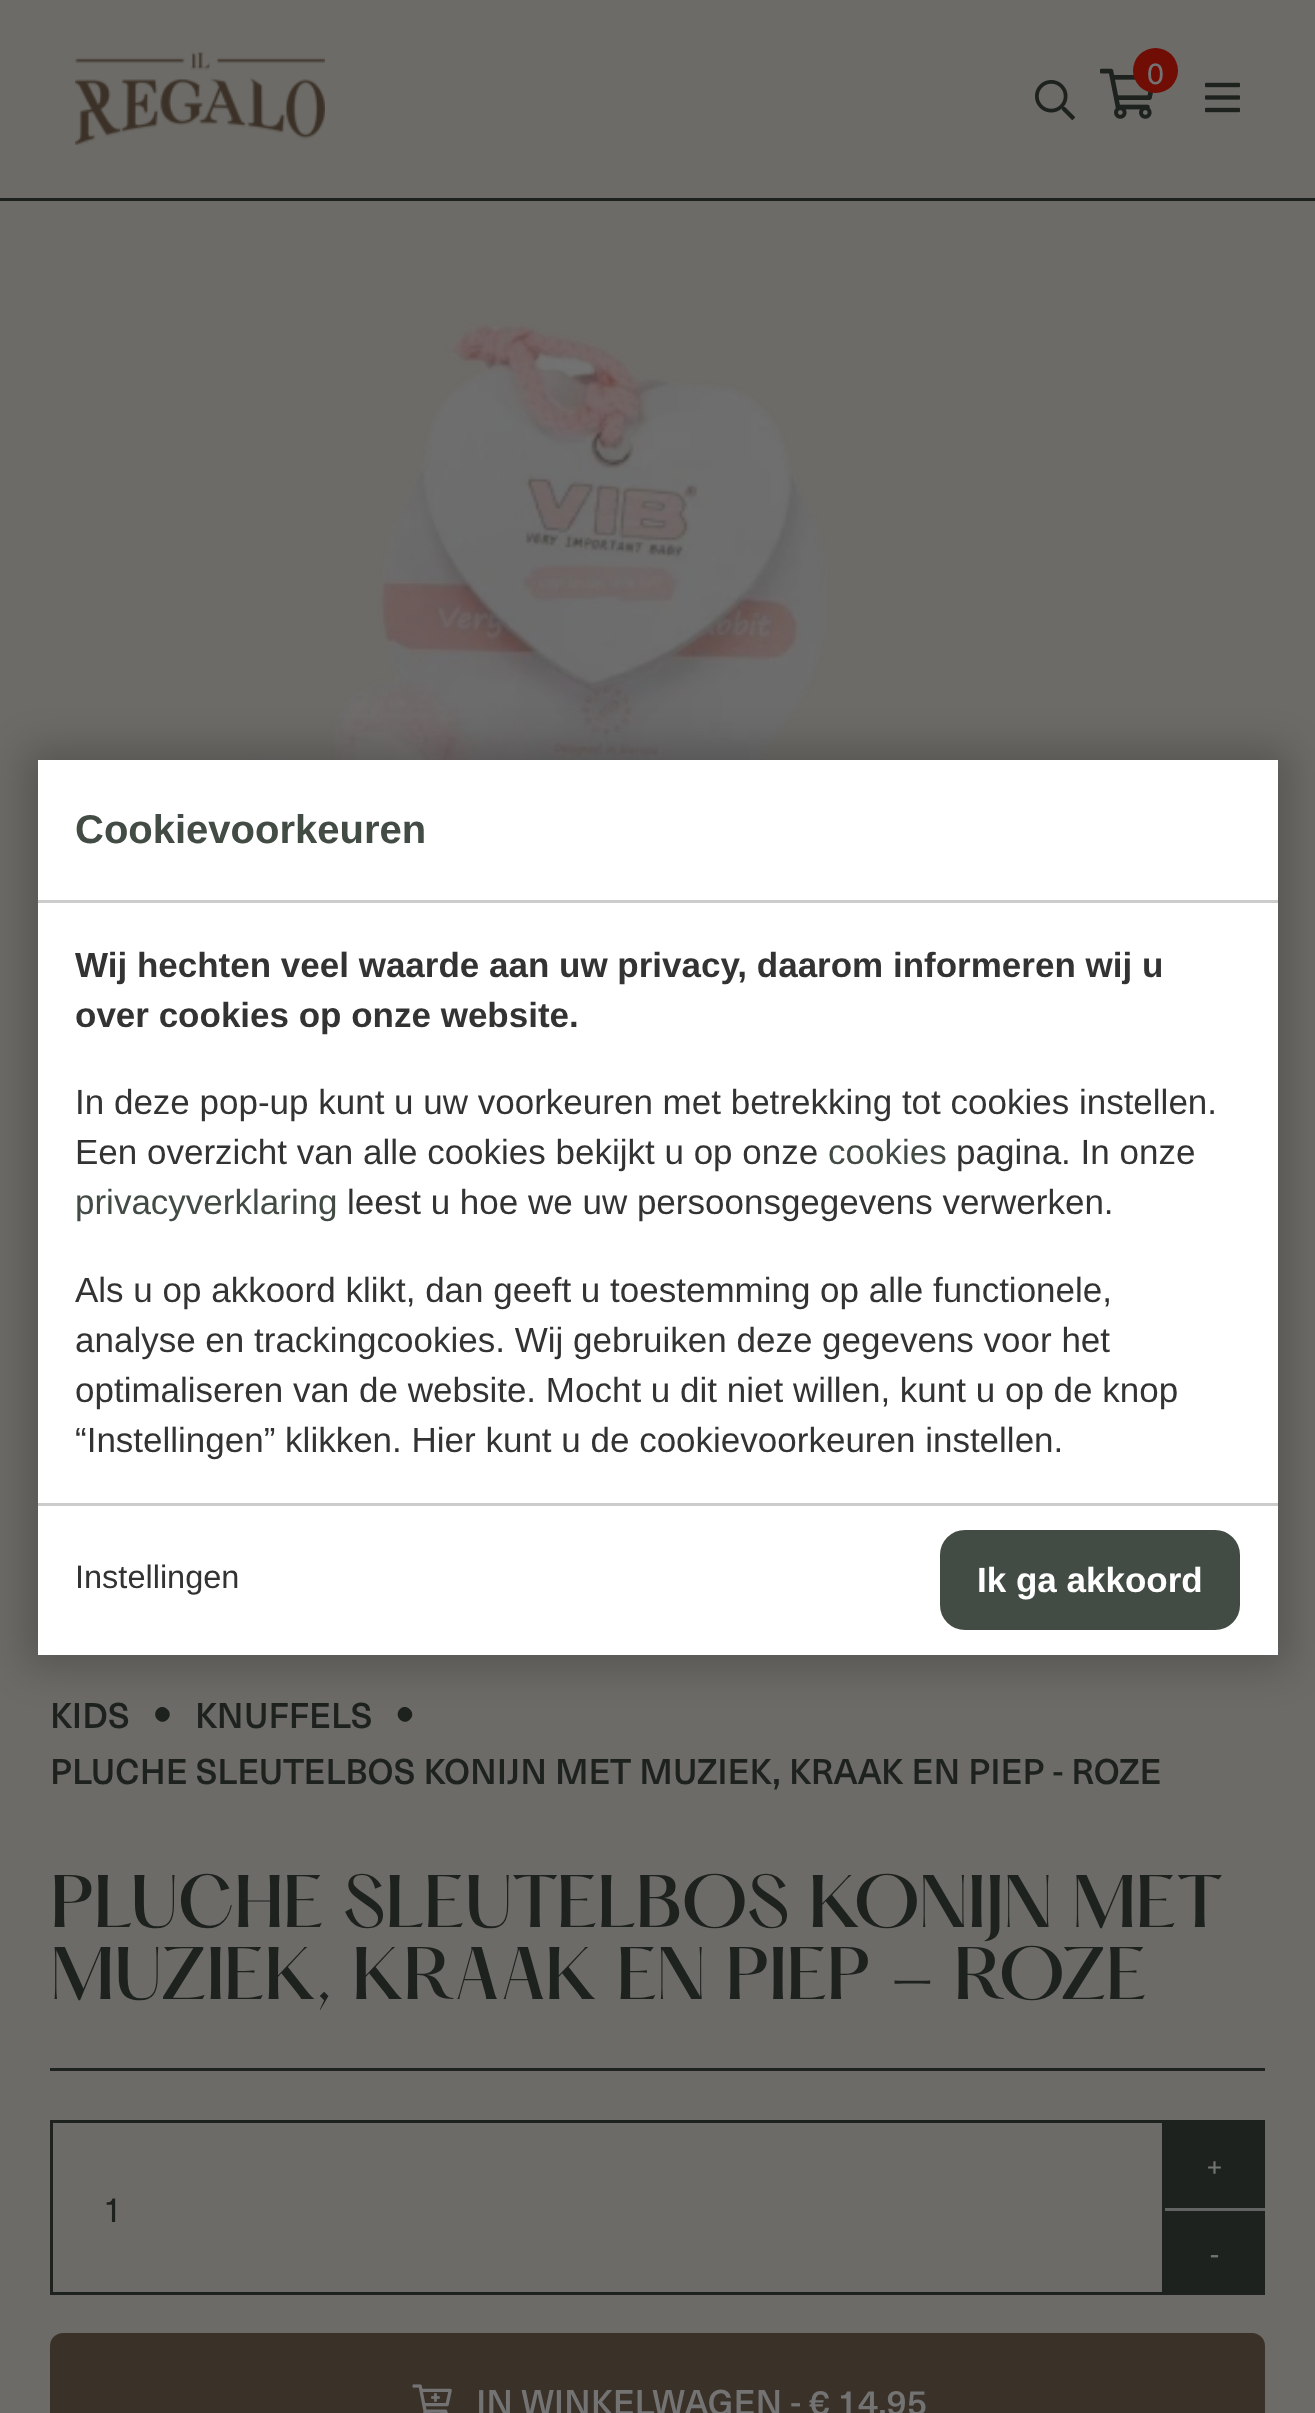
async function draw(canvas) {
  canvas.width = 1315;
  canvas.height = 2413;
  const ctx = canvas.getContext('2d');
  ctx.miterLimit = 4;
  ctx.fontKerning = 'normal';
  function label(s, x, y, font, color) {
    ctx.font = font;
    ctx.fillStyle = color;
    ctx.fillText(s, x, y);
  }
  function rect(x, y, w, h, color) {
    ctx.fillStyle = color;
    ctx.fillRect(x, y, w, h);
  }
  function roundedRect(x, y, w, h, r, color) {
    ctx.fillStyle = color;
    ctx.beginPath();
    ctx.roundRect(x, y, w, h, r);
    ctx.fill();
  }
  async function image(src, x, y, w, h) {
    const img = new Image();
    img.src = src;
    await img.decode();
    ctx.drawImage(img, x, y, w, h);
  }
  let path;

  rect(0, 0, 1315, 2413, '#6d6b67');
  rect(0, 198, 1315, 3, '#1e221f');
  await image('assets/img1.png', 75, 52, 250, 93);
  await image('assets/img2.png', 1100, 68, 53, 51);
  ctx.fillStyle = '#700d04';
  ctx.beginPath();
  ctx.arc(1155.5, 70.5, 22.5, 0, 2 * Math.PI);
  ctx.fill();
  label('0', 1147, 84, '30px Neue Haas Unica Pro', '#737373');
  await image('assets/img3.png', 1035, 80, 40, 40);
  await image('assets/img4.png', 1205, 82, 35, 31);
  await image('assets/img5.png', 235, 323, 595, 437);
  label('KIDS', 50, 1728, '500 35px Neue Haas Unica Pro', '#1e221f');
  path = new Path2D('M157.5 1709C164 1702.5 174.5 1713 167.5 1719.5C161 1726.5 150.5 1716 157.5 1709Z');
  ctx.fill(path);
  label('KNUFFELS', 195, 1728, '500 35px Neue Haas Unica Pro', '#1e221f');
  path = new Path2D('M400 1709C406.5 1702.5 417 1713 410 1719.5C403.5 1726.5 393 1716 400 1709Z');
  ctx.fill(path);
  label('PLUCHE SLEUTELBOS KONIJN MET MUZIEK, KRAAK EN PIEP - ROZE', 50, 1784, '500 35px Neue Haas Unica Pro', '#1e221f');
  label('PLUCHE SLEUTELBOS KONIJN MET', 50, 1927, '500 65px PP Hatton', '#1e221f');
  label('MUZIEK, KRAAK EN PIEP - ROZE', 50, 1999, '500 65px PP Hatton', '#1e221f');
  rect(50, 2068, 1215, 3, '#1e221f');
  ctx.strokeStyle = '#1e221f';
  ctx.lineWidth = 3;
  ctx.strokeRect(51.5, 2121.5, 1112, 172);
  label('1', 103, 2222, '35px Neue Haas Unica Pro', '#1e221f');
  rect(1165, 2120, 100, 88, '#1e221f');
  label('+', 1206, 2177, '30px Neue Haas Unica Pro', '#737373');
  rect(1165, 2211, 100, 84, '#1e221f');
  rect(1165, 2208, 100, 3, '#636363');
  label('-', 1210, 2265, '30px Neue Haas Unica Pro', '#737373');
  roundedRect(50, 2333, 1215, 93, 13, '#3a3128');
  await image('assets/img6.png', 412, 2384, 40, 29);
  label('IN WINKELWAGEN - € 14,95', 476, 2415, '500 35px Neue Haas Unica Pro', '#737373');
  ctx.fillStyle = '#00000033';
  ctx.filter = 'blur(19px)';
  ctx.beginPath();
  ctx.rect(25, 748, 1265, 920);
  ctx.fill();
  ctx.filter = 'none';
  rect(38, 760, 1240, 895, '#fff');
  rect(38, 900, 1240, 3, '#ccc');
  label('Cookievoorkeuren', 75, 843, 'bold 40px Liberation Sans', '#434c44');
  label('Wij hechten veel waarde aan uw privacy, daarom informeren wij u', 75, 977, 'bold 35px Liberation Sans', '#333');
  label('over cookies op onze website.', 75, 1027, 'bold 35px Liberation Sans', '#333');
  label('In deze pop-up kunt u uw voorkeuren met betrekking tot cookies instellen.', 75, 1114, '35px Liberation Sans', '#333');
  label('Een overzicht van alle cookies bekijkt u op onze', 75, 1164, '35px Liberation Sans', '#333');
  label('cookies', 828, 1164, '35px Liberation Sans', '#434c44');
  label('pagina. In onze', 956, 1164, '35px Liberation Sans', '#333');
  label('privacyverklaring', 75, 1214, '35px Liberation Sans', '#434c44');
  label('leest u hoe we uw persoonsgegevens verwerken.', 347, 1214, '35px Liberation Sans', '#333');
  label('Als u op akkoord klikt, dan geeft u toestemming op alle functionele,', 75, 1302, '35px Liberation Sans', '#333');
  label('analyse en trackingcookies. Wij gebruiken deze gegevens voor het', 75, 1352, '35px Liberation Sans', '#333');
  label('optimaliseren van de website. Mocht u dit niet willen, kunt u op de knop', 75, 1402, '35px Liberation Sans', '#333');
  label('“Instellingen” klikken. Hier kunt u de cookievoorkeuren instellen.', 75, 1452, '35px Liberation Sans', '#333');
  rect(38, 1503, 1240, 3, '#ccc');
  label('Instellingen', 75, 1588, '32.5px Liberation Sans', '#333');
  ctx.fillStyle = '#434c44';
  ctx.beginPath();
  ctx.roundRect(941.5, 1531.5, 297, 97, 23.5);
  ctx.fill();
  ctx.strokeStyle = '#434c44';
  ctx.stroke();
  label('Ik ga akkoord', 977, 1592, 'bold 35px Liberation Sans', '#fff');
}

draw(document.querySelector('canvas'));
